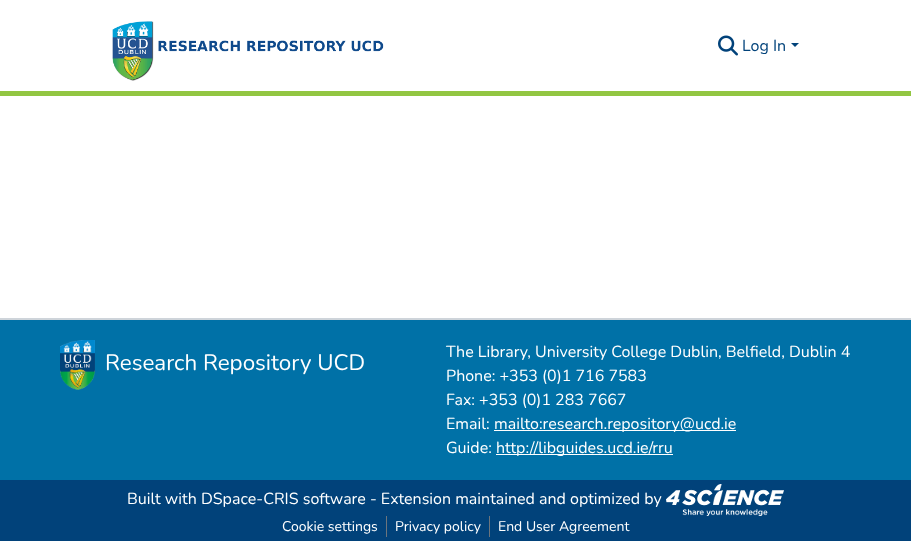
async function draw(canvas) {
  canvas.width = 911;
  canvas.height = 541;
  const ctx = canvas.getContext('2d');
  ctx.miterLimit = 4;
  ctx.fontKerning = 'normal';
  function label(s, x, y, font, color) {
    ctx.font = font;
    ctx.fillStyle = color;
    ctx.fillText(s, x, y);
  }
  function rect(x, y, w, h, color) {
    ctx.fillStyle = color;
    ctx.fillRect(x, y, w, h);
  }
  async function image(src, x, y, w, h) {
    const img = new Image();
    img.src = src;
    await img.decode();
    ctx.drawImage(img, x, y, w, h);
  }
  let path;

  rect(0, 0, 911, 541, '#fff');
  rect(0, 91, 911, 5, '#92c642');
  await image('assets/img1.png', 112, 21, 272, 60);
  await image('assets/img2.png', 718, 35, 20, 21);
  label('Log In', 742, 51, '16px Nunito', '#01427a');
  path = new Path2D('M791 43H799L795 47Z');
  ctx.fill(path);
  rect(0, 480, 911, 61, '#01427a');
  rect(0, 318, 911, 2, '#ced4da');
  rect(0, 320, 911, 160, '#0071a7');
  await image('assets/img3.png', 60, 340, 35, 50);
  label('Research Repository UCD', 105, 370, '22.4px Nunito', '#fff');
  label('The Library, University College Dublin, Belfield, Dublin 4', 446, 357, '16px Nunito', '#fff');
  label('Phone: +353 (0)1 716 7583', 446, 381, '16px Nunito', '#fff');
  label('Fax: +353 (0)1 283 7667', 446, 405, '16px Nunito', '#fff');
  label('Email:', 446, 429, '16px Nunito', '#fff');
  rect(494, 430, 242, 1, '#fff');
  label('mailto:research.repository@ucd.ie', 494, 429, '16px Nunito', '#fff');
  label('Guide:', 446, 453, '16px Nunito', '#fff');
  rect(496, 454, 177, 1, '#fff');
  label('http://libguides.ucd.ie/rru', 496, 453, '16px Nunito', '#fff');
  label('Built with DSpace-CRIS software - Extension maintained and optimized by', 127, 504, '16px Nunito', '#fff');
  await image('assets/img4.png', 666, 484, 118, 32);
  label('Cookie settings', 282, 531, '14px Nunito', '#fff');
  rect(386, 516, 1, 21, '#6c757d');
  label('Privacy policy', 395, 531, '14px Nunito', '#fff');
  rect(489, 516, 1, 21, '#6c757d');
  label('End User Agreement', 498, 531, '14px Nunito', '#fff');
}

draw(document.querySelector('canvas'));
